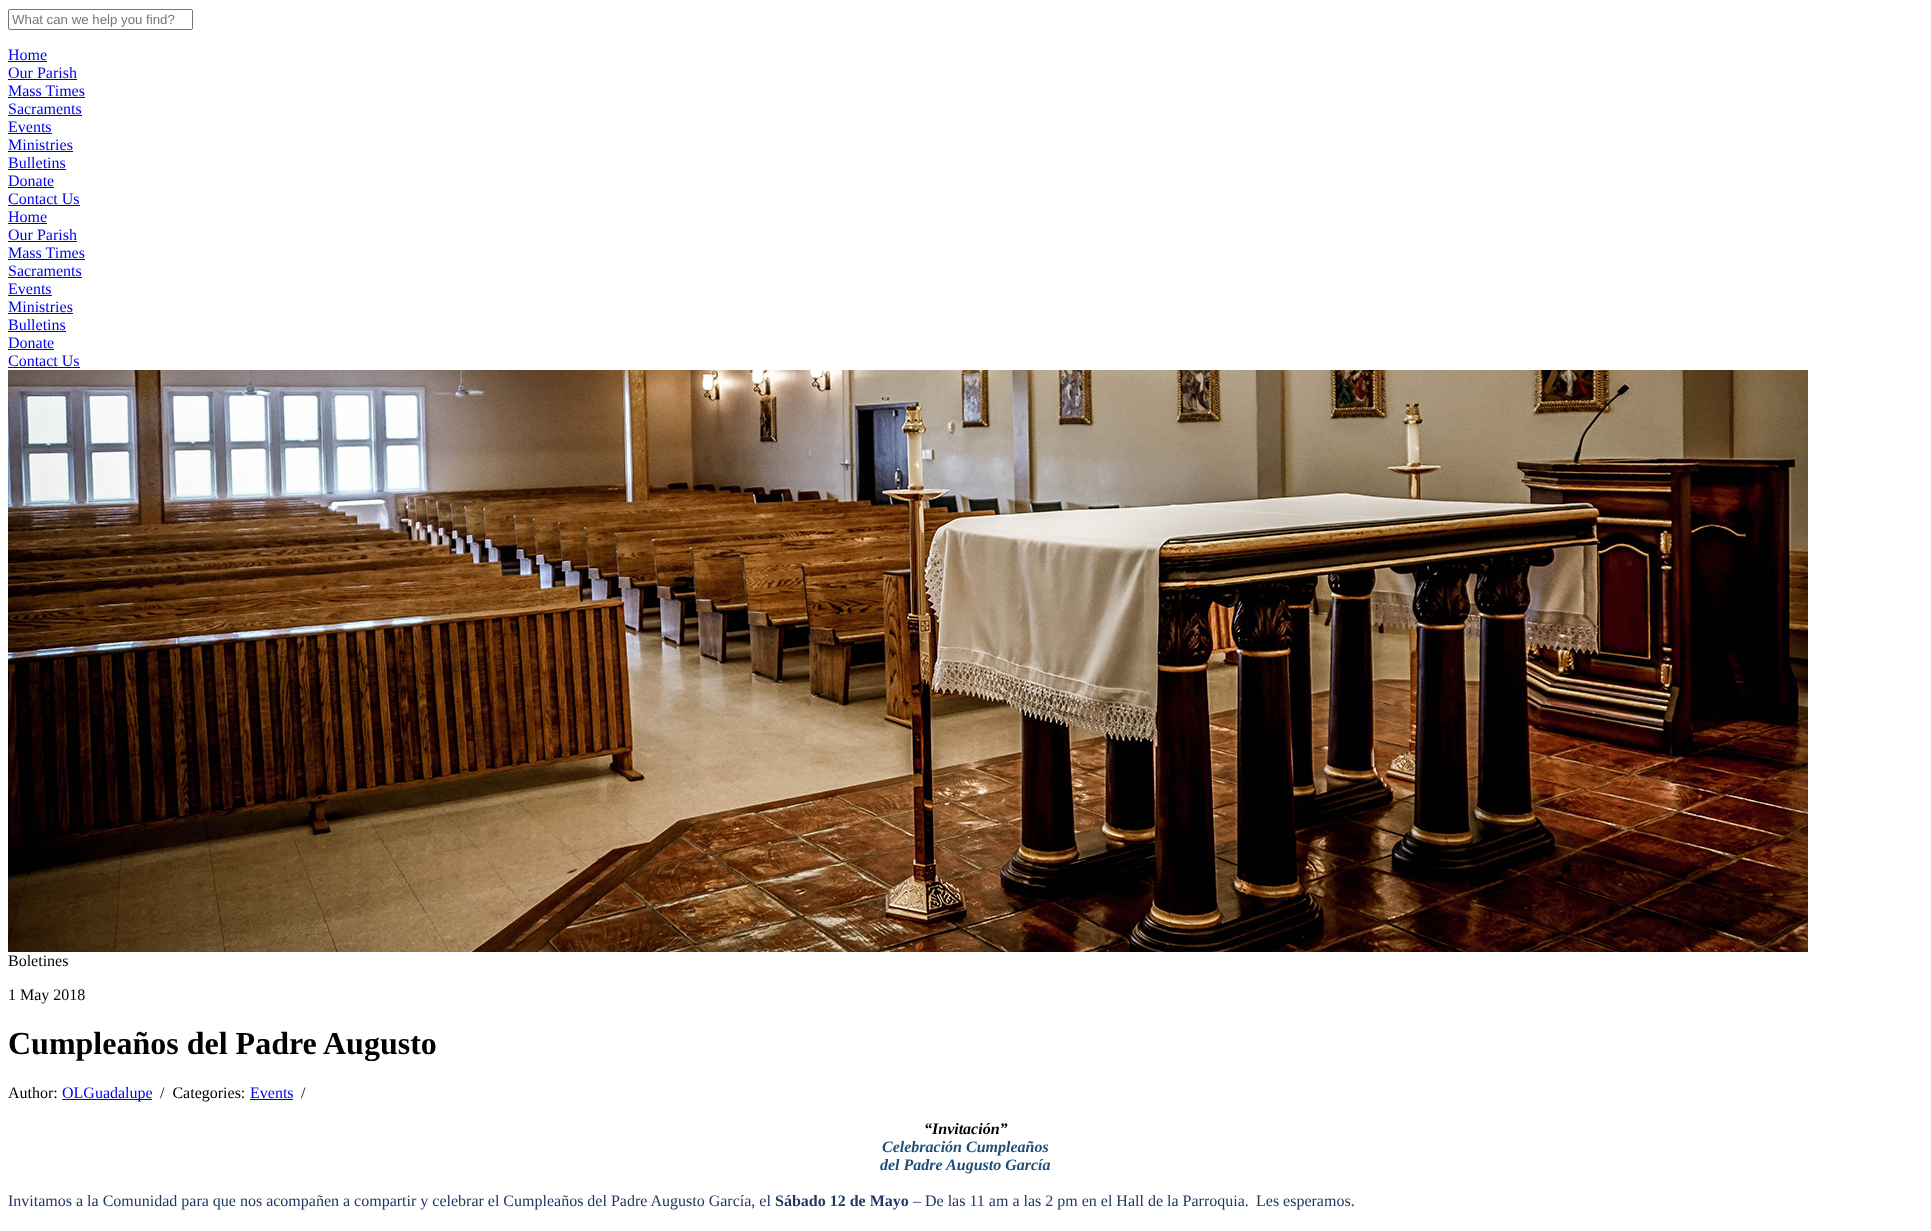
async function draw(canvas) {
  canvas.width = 1931;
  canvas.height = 1231;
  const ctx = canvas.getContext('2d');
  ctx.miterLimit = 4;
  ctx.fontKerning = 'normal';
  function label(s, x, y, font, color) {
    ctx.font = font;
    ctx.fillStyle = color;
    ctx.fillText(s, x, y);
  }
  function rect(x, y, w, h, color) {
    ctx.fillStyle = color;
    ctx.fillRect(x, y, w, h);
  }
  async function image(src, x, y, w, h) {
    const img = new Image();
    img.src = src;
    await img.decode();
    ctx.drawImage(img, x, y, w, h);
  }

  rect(0, 0, 1931, 1231, '#fff');
  ctx.beginPath();
  ctx.roundRect(8.5, 9.5, 184, 20, 1.5);
  ctx.strokeStyle = '#767676';
  ctx.stroke();
  label('What can we help you find?', 12, 24, '13.25px Liberation Sans', '#757575');
  label('Home', 8, 60, '16px Liberation Serif', '#00e');
  rect(8, 61, 39, 1, '#00e');
  label('Our Parish', 8, 78, '16px Liberation Serif', '#00e');
  rect(8, 79, 69, 1, '#00e');
  label('Mass Times', 8, 96, '16px Liberation Serif', '#00e');
  rect(8, 97, 77, 1, '#00e');
  label('Sacraments', 8, 114, '16px Liberation Serif', '#00e');
  rect(8, 115, 74, 1, '#00e');
  label('Events', 8, 132, '16px Liberation Serif', '#00e');
  rect(8, 133, 44, 1, '#00e');
  label('Ministries', 8, 150, '16px Liberation Serif', '#00e');
  rect(8, 151, 65, 1, '#00e');
  label('Bulletins', 8, 168, '16px Liberation Serif', '#00e');
  rect(8, 169, 58, 1, '#00e');
  label('Donate', 8, 186, '16px Liberation Serif', '#00e');
  rect(8, 187, 46, 1, '#00e');
  label('Contact Us', 8, 204, '16px Liberation Serif', '#00e');
  rect(8, 205, 72, 1, '#00e');
  label('Home', 8, 222, '16px Liberation Serif', '#00e');
  rect(8, 223, 39, 1, '#00e');
  label('Our Parish', 8, 240, '16px Liberation Serif', '#00e');
  rect(8, 241, 69, 1, '#00e');
  label('Mass Times', 8, 258, '16px Liberation Serif', '#00e');
  rect(8, 259, 77, 1, '#00e');
  label('Sacraments', 8, 276, '16px Liberation Serif', '#00e');
  rect(8, 277, 74, 1, '#00e');
  label('Events', 8, 294, '16px Liberation Serif', '#00e');
  rect(8, 295, 44, 1, '#00e');
  label('Ministries', 8, 312, '16px Liberation Serif', '#00e');
  rect(8, 313, 65, 1, '#00e');
  label('Bulletins', 8, 330, '16px Liberation Serif', '#00e');
  rect(8, 331, 58, 1, '#00e');
  label('Donate', 8, 348, '16px Liberation Serif', '#00e');
  rect(8, 349, 46, 1, '#00e');
  label('Contact Us', 8, 366, '16px Liberation Serif', '#00e');
  rect(8, 367, 72, 1, '#00e');
  await image('assets/img1.png', 8, 370, 1800, 582);
  label('Boletines', 8, 966, '16px Liberation Serif', '#000');
  label('1 May 2018', 8, 1000, '16px Liberation Serif', '#000');
  label('Cumpleaños del Padre Augusto', 8, 1054, 'bold 32px Liberation Serif', '#000');
  label('Author:', 8, 1098, '16px Liberation Serif', '#000');
  rect(62, 1099, 90, 1, '#00e');
  label('OLGuadalupe', 62, 1098, '16px Liberation Serif', '#00e');
  label('/  Categories:', 160, 1098, '16px Liberation Serif', '#000');
  label('Events', 250, 1098, '16px Liberation Serif', '#00e');
  rect(250, 1099, 43, 1, '#00e');
  label('/', 301, 1098, '16px Liberation Serif', '#000');
  label('“Invitación”', 924, 1134, 'italic bold 16px Liberation Serif', '#000');
  label('Celebración Cumpleaños', 882, 1152, 'italic bold 16px Liberation Serif', '#1f4e79');
  label('del Padre Augusto García', 880, 1170, 'italic bold 16px Liberation Serif', '#1f4e79');
  label('Invitamos a la Comunidad para que nos acompañen a compartir y celebrar el Cumpleaños del Padre Augusto García, el', 8, 1206, '16px Liberation Serif', '#1f3864');
  label('Sábado 12 de Mayo', 775, 1206, 'bold 16px Liberation Serif', '#1f3864');
  label('– De las 11 am a las 2 pm en el Hall de la Parroquia.', 913, 1206, '16px Liberation Serif', '#1f3864');
  label('Les esperamos.', 1256, 1206, '16px Liberation Serif', '#1f3864');
}

draw(document.querySelector('canvas'));
